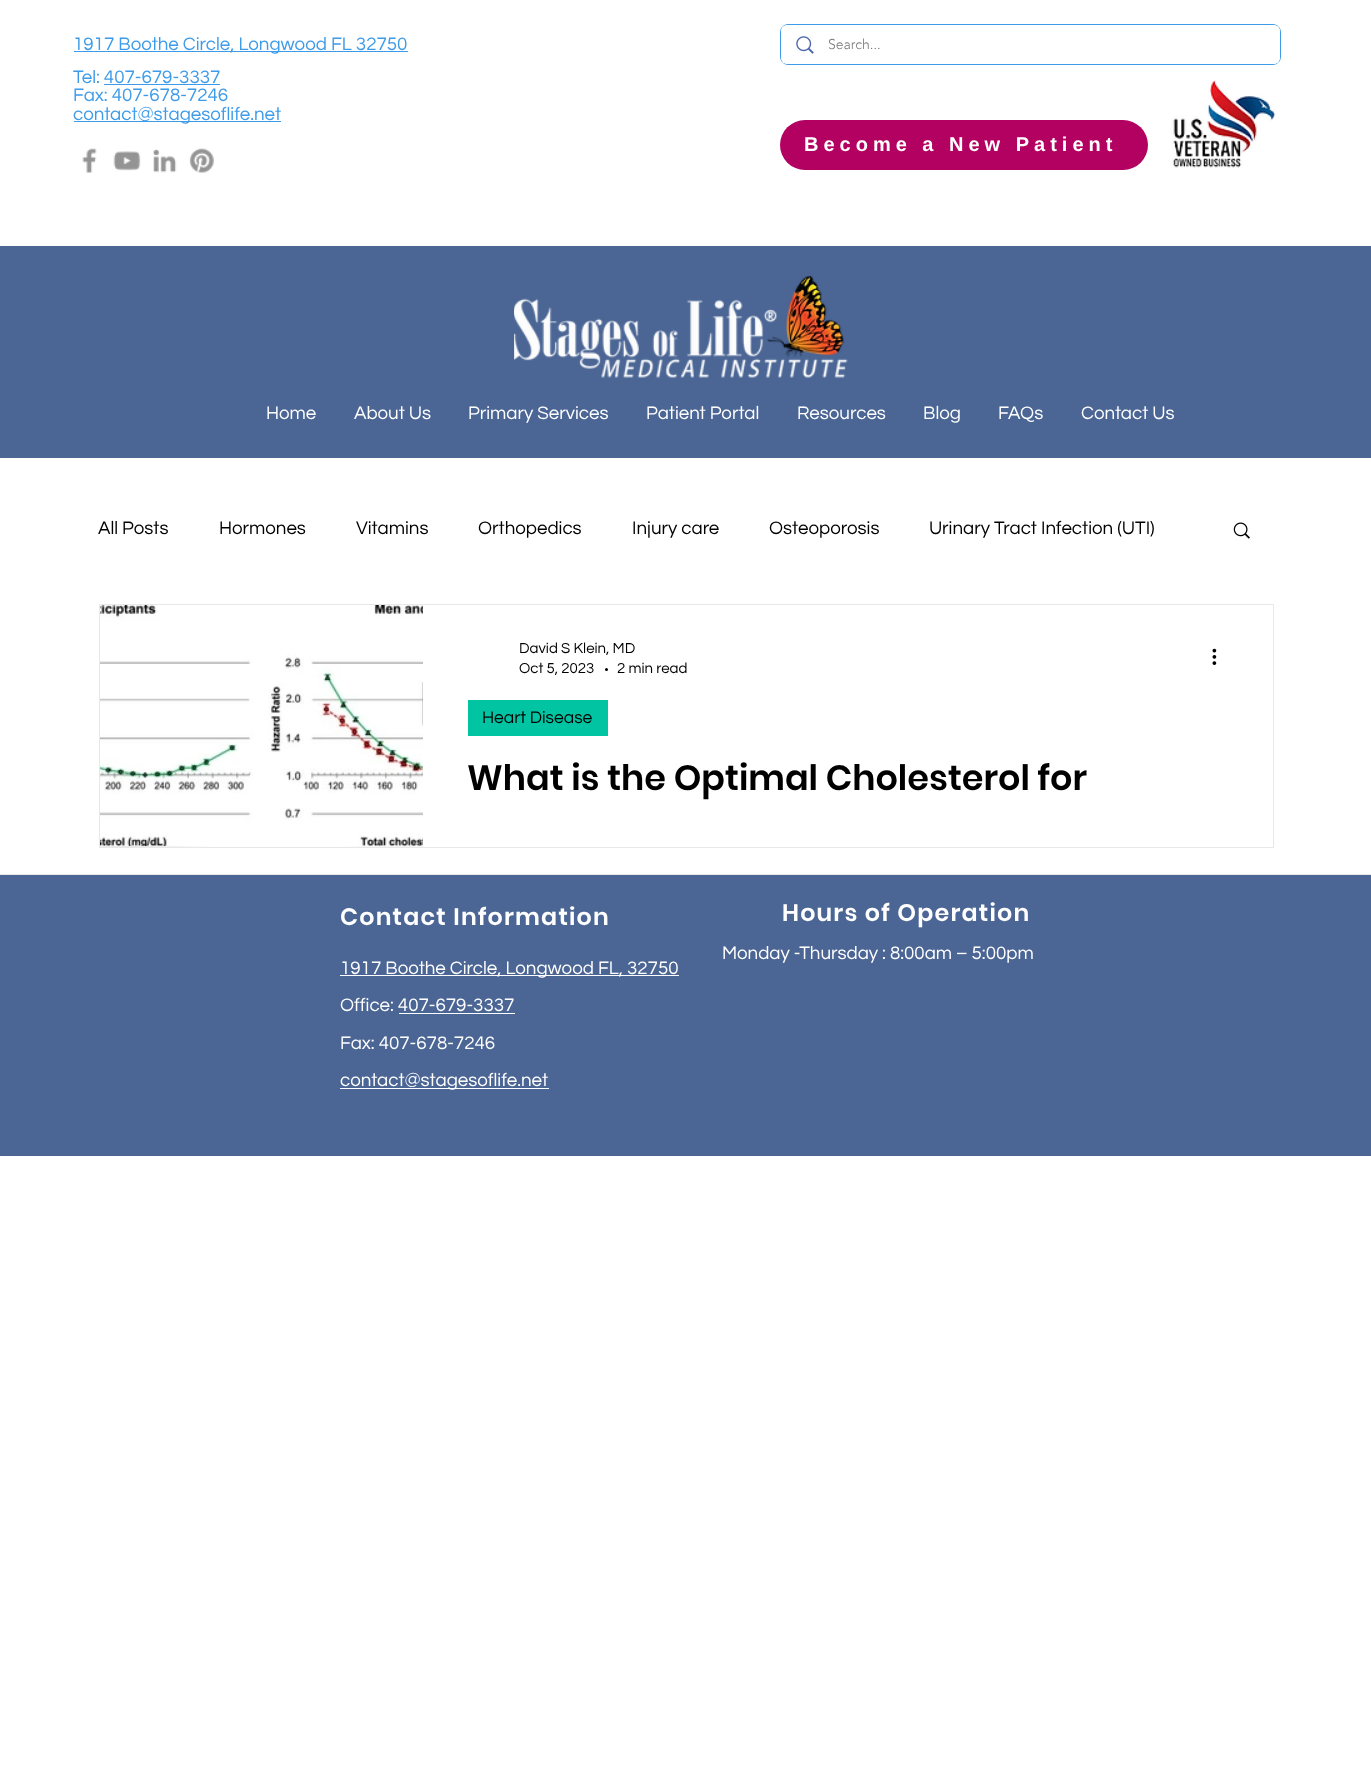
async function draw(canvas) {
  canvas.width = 1371;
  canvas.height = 1765;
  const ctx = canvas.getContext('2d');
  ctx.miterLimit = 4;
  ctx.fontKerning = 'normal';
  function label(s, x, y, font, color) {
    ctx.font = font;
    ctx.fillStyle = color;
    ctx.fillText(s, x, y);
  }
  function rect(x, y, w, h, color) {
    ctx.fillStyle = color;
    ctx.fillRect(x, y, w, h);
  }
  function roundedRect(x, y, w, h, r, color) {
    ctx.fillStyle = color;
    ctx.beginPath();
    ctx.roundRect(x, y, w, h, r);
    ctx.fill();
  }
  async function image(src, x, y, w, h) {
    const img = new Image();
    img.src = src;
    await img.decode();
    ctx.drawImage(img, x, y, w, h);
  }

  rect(0, 0, 1371, 1765, '#fff');
  rect(74, 51, 334, 1, '#3d9be9');
  label('1917 Boothe Circle, Longwood FL 32750', 73, 50, '18.75px Questrial', '#3d9be9');
  ctx.beginPath();
  ctx.roundRect(780.5, 24.5, 500, 40, 7.5);
  ctx.strokeStyle = '#3d9be9';
  ctx.stroke();
  roundedRect(781, 25, 499, 39, 6, '#fff');
  await image('assets/img1.png', 796, 36, 18, 18);
  label('Search...', 828, 49, '300 14px "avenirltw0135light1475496"', '#787878');
  label('Tel: 407-679-3337', 73, 83, '18.75px Questrial', '#3d9be9');
  rect(104, 84, 116, 1, '#3d9be9');
  label('Fax: 407-678-7246', 73, 101, '18.75px Questrial', '#3d9be9');
  rect(74, 121, 207, 1, '#3d9be9');
  label('contact@stagesoflife.net', 73, 120, '18.75px Questrial', '#3d9be9');
  roundedRect(780, 120, 368, 50, 25, '#b30162');
  ctx.letterSpacing = '5px';
  label('Become a New Patient', 804, 151, 'bold 20px Liberation Sans', '#fff');
  await image('assets/img2.png', 1171, 80, 105, 88);
  await image('assets/img3.png', 82, 148, 15, 25);
  await image('assets/img4.png', 113, 151, 28, 20);
  await image('assets/img5.png', 153, 149, 24, 24);
  await image('assets/img6.png', 189, 148, 25, 25);
  rect(0, 246, 1371, 212, '#4b6695');
  await image('assets/img7.png', 514, 275, 334, 103);
  ctx.letterSpacing = '0px';
  label('Home', 266, 419, '18.75px Questrial', '#fff');
  label('About Us', 354, 419, '18.75px Questrial', '#fff');
  label('Primary Services', 468, 419, '18.75px Questrial', '#fff');
  label('Patient Portal', 646, 419, '18.75px Questrial', '#fff');
  label('Resources', 797, 419, '18.75px Questrial', '#fff');
  label('Blog', 923, 419, '18.75px Questrial', '#fff');
  label('FAQs', 998, 419, '18.75px Questrial', '#fff');
  label('Contact Us', 1081, 419, '18.75px Questrial', '#fff');
  label('All Posts', 98, 534, '18.75px Questrial', '#000');
  label('Hormones', 219, 534, '18.75px Questrial', '#000');
  label('Vitamins', 356, 534, '18.75px Questrial', '#000');
  label('Orthopedics', 478, 534, '18.75px Questrial', '#000');
  label('Injury care', 632, 534, '18.75px Questrial', '#000');
  label('Osteoporosis', 769, 534, '18.75px Questrial', '#000');
  label('Urinary Tract Infection (UTI)', 929, 534, '18.75px Questrial', '#000');
  await image('assets/img8.png', 1233, 522, 17, 17);
  ctx.strokeStyle = '#e8e8e8';
  ctx.strokeRect(99.5, 604.5, 1174, 243);
  await image('assets/img9.png', 100, 605, 323, 241);
  await image('assets/img10.png', 100, 846, 324, 1);
  label('David S Klein, MD', 519, 653, '15px Questrial', '#000');
  label('Oct 5, 2023', 519, 673, '15px Questrial', '#000');
  ctx.beginPath();
  ctx.arc(606.5, 669.5, 1.5, 0, 2 * Math.PI);
  ctx.fill();
  label('2 min read', 617, 673, '15px Questrial', '#000');
  await image('assets/img11.png', 1212, 648, 5, 17);
  rect(468, 700, 140, 36, '#01c5a2');
  label('Heart Disease', 482, 723, '17.5px Questrial', '#000');
  label('What is the Optimal Cholesterol for', 467, 790, '600 35px Poppins', '#000');
  rect(0, 874, 1371, 1, '#e8e8e8');
  rect(0, 875, 1371, 281, '#4b6695');
  ctx.letterSpacing = '1.2px';
  label('Contact Information', 340, 925, '600 23.75px Poppins', '#fff');
  rect(340, 975, 339, 1, '#fff');
  ctx.letterSpacing = '0px';
  label('1917 Boothe Circle, Longwood FL, 32750', 340, 974, '18.75px Questrial', '#fff');
  label('Office: 407-679-3337', 340, 1011, '18.75px Questrial', '#fff');
  rect(399, 1013, 116, 1, '#fff');
  label('Fax: 407-678-7246', 340, 1049, '18.75px Questrial', '#fff');
  rect(340, 1088, 209, 1, '#fff');
  label('contact@stagesoflife.net', 340, 1086, '18.75px Questrial', '#fff');
  ctx.letterSpacing = '1.2px';
  label('Hours of Operation', 782, 921, '600 23.75px Poppins', '#fff');
  ctx.letterSpacing = '0px';
  label('Monday -Thursday : 8:00am – 5:00pm', 722, 959, '18.75px Questrial', '#fff');
}

draw(document.querySelector('canvas'));
